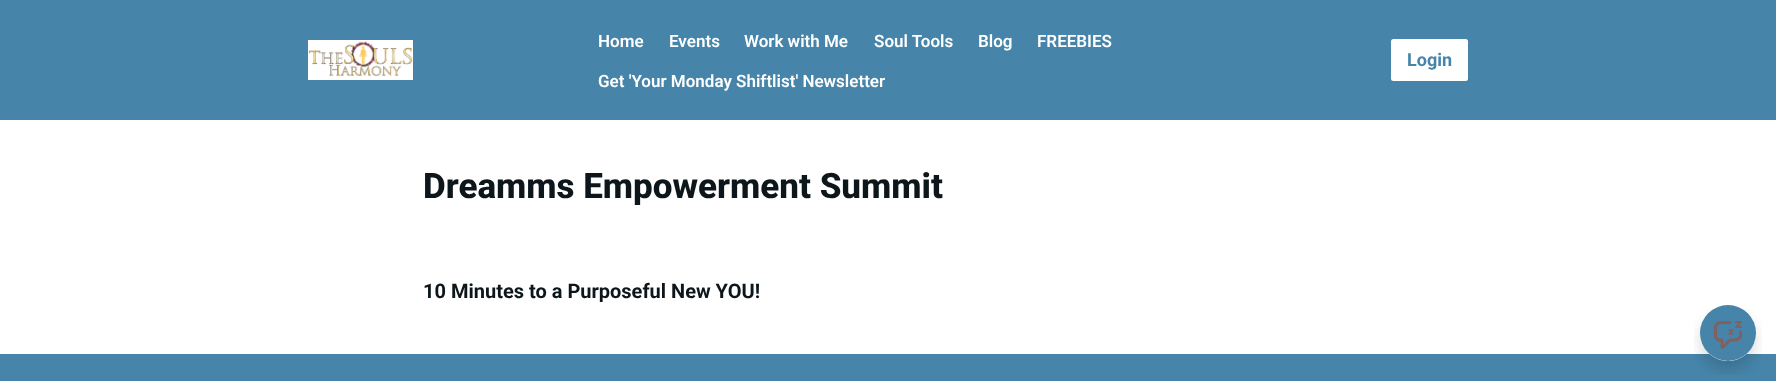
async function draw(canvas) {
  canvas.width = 1776;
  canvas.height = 381;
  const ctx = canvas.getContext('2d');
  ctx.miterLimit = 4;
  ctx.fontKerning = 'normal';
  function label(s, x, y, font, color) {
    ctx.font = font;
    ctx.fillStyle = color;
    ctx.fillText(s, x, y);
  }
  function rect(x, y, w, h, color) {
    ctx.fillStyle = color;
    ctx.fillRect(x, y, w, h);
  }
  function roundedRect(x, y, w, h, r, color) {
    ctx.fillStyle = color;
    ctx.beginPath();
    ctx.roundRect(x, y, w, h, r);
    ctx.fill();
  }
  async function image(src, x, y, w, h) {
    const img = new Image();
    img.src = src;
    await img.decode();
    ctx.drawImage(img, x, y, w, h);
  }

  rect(0, 0, 1776, 381, '#fff');
  rect(0, 0, 1776, 120, '#4684a9');
  await image('assets/img1.png', 308, 40, 105, 40);
  label('Home', 598, 47, '600 17px Roboto', '#fff');
  label('Events', 669, 47, '600 17px Roboto', '#fff');
  label('Work with Me', 744, 47, '600 17px Roboto', '#fff');
  label('Soul Tools', 874, 47, '600 17px Roboto', '#fff');
  label('Blog', 978, 47, '600 17px Roboto', '#fff');
  label('FREEBIES', 1037, 47, '600 17px Roboto', '#fff');
  label('Get \'Your Monday Shiftlist\' Newsletter', 598, 87, '600 17px Roboto', '#fff');
  roundedRect(1391, 39, 77, 42, 2.5, '#fff');
  label('Login', 1407, 66, 'bold 18px Roboto', '#4684a9');
  label('Dreamms Empowerment Summit', 423, 198, '800 35px Roboto', '#0d161b');
  label('10 Minutes to a Purposeful New YOU!', 423, 298, 'bold 20px Roboto', '#0d161b');
  rect(0, 354, 1776, 27, '#4684a9');
  await image('assets/img2.png', 1694, 309, 68, 66);
  ctx.beginPath();
  ctx.arc(1728, 333, 28, 0, 2 * Math.PI);
  ctx.fill();
  await image('assets/img3.png', 1714, 321, 28, 28);
}

draw(document.querySelector('canvas'));
